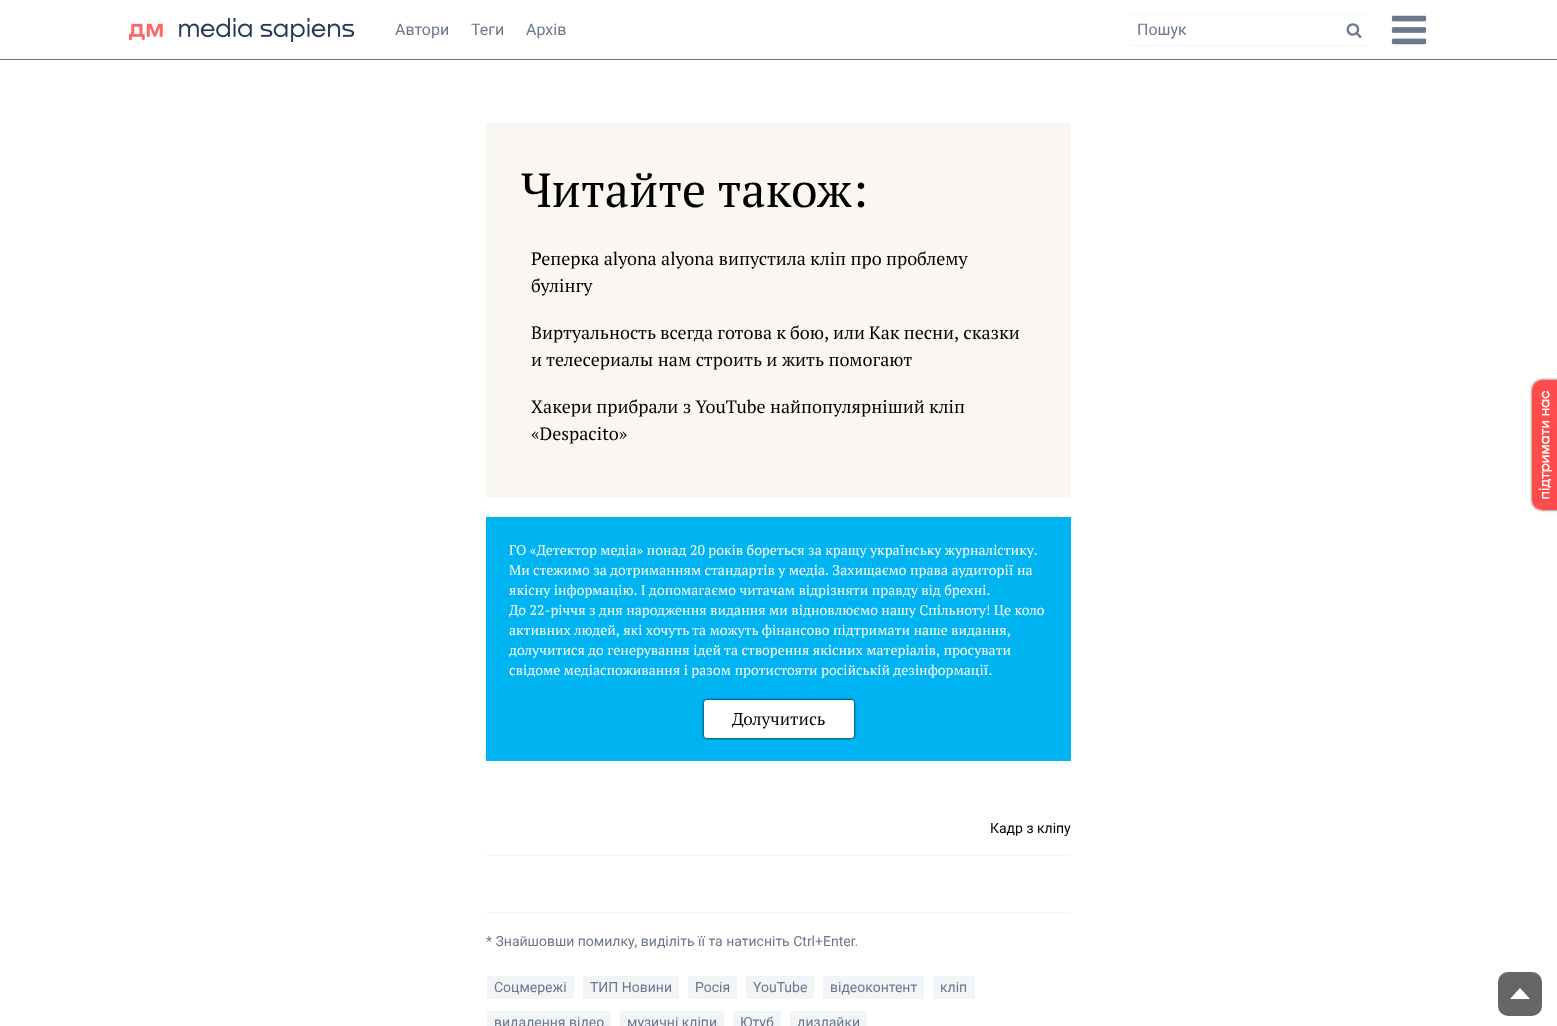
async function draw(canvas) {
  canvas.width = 1557;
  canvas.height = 1026;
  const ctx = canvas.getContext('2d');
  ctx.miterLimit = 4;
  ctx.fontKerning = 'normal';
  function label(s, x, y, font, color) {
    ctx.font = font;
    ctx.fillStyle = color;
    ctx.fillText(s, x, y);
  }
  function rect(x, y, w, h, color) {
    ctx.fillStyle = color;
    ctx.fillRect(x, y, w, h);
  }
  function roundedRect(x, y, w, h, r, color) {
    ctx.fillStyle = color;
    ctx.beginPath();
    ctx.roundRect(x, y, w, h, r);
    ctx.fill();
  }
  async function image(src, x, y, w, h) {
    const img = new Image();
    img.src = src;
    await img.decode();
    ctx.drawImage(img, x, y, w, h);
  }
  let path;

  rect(0, 0, 1557, 1026, '#fff');
  await image('assets/img1.png', 129, 18, 225, 24);
  label('Автори', 395, 35, '16px Roboto', '#6b778d');
  label('Теги', 471, 35, '16px Roboto', '#6b778d');
  label('Архів', 526, 35, '16px Roboto', '#6b778d');
  rect(1129, 14, 240, 1, '#f2f6fa');
  rect(1129, 45, 240, 1, '#f2f6fa');
  label('Пошук', 1137, 35, '16px Roboto', '#6b778d');
  label('f', 1346, 38, '16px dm', '#6b778d');
  await image('assets/img2.png', 1391, 15, 36, 30);
  rect(0, 59, 1557, 1, '#6b778d');
  rect(486, 123, 585, 374, '#faf7f2');
  ctx.wordSpacing = '1px';
  label('Читайте також', 521, 207, '48px PT Serif', '#000');
  ctx.wordSpacing = '0px';
  label(':', 852, 207, '48px PT Serif', '#000');
  label('Реперка alyona alyona випустила кліп про проблему', 531, 265, '18px PT Serif', '#000');
  label('булінгу', 531, 292, '18px PT Serif', '#000');
  ctx.wordSpacing = '-0.25px';
  label('Виртуальность всегда готова к бою, или Как песни, сказки', 531, 339, '18px PT Serif', '#000');
  ctx.wordSpacing = '0.25px';
  label('и телесериалы нам строить и жить помогают', 531, 366, '18px PT Serif', '#000');
  ctx.wordSpacing = '0px';
  label('Хакери прибрали з YouTube найпопулярніший кліп', 531, 413, '18px PT Serif', '#000');
  label('«Despacito»', 531, 440, '18px PT Serif', '#000');
  rect(486, 517, 585, 244, '#00b4f2');
  label('ГО «Детектор медіа» понад 20 років бореться за кращу українську журналістику.', 509, 555, '14px PT Serif', '#fff');
  label('Ми стежимо за дотриманням стандартів у медіа. Захищаємо права аудиторії на', 509, 575, '14px PT Serif', '#fff');
  label('якісну інформацію. І допомагаємо читачам відрізняти правду від брехні.', 509, 595, '14px PT Serif', '#fff');
  label('До 22-річчя з дня народження видання ми відновлюємо нашу Спільноту! Це коло', 509, 615, '14px PT Serif', '#fff');
  label('активних людей, які хочуть та можуть фінансово підтримати наше видання,', 509, 635, '14px PT Serif', '#fff');
  label('долучитися до генерування ідей та створення якісних матеріалів, просувати', 509, 655, '14px PT Serif', '#fff');
  label('свідоме медіаспоживання і разом протистояти російській дезінформації.', 509, 675, '14px PT Serif', '#fff');
  ctx.fillStyle = '#000';
  ctx.filter = 'blur(1.5px)';
  ctx.beginPath();
  ctx.roundRect(704, 700, 150, 38, 3);
  ctx.fill();
  ctx.filter = 'none';
  roundedRect(704, 700, 150, 38, 3, '#fff');
  label('Долучитись', 732, 725, '17px PT Serif', '#000');
  label('Кадр з кліпу', 990, 833, '14px Roboto', '#000');
  rect(486, 855, 585, 1, '#faf7f2');
  rect(486, 912, 585, 1, '#faf7f2');
  label('* Знайшовши помилку, виділіть її та натисніть Ctrl+Enter.', 486, 946, '14px Roboto', '#6b778d');
  roundedRect(487, 976, 87, 23, 1, '#f2f5f7');
  label('Соцмережі', 494, 992, '14px Roboto', '#6b778d');
  roundedRect(583, 976, 96, 23, 1, '#f2f5f7');
  label('ТИП Новини', 590, 992, '14px Roboto', '#6b778d');
  roundedRect(688, 976, 49, 23, 1, '#f2f5f7');
  label('Росія', 695, 992, '14px Roboto', '#6b778d');
  roundedRect(746, 976, 68, 23, 1, '#f2f5f7');
  label('YouTube', 753, 992, '14px Roboto', '#6b778d');
  roundedRect(823, 976, 101, 23, 1, '#f2f5f7');
  label('відеоконтент', 830, 992, '14px Roboto', '#6b778d');
  roundedRect(933, 976, 42, 23, 1, '#f2f5f7');
  label('кліп', 940, 992, '14px Roboto', '#6b778d');
  roundedRect(487, 1011, 124, 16, 1, '#f2f5f7');
  label('видалення відео', 494, 1027, '14px Roboto', '#6b778d');
  roundedRect(620, 1011, 104, 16, 1, '#f2f5f7');
  label('музичні кліпи', 627, 1027, '14px Roboto', '#6b778d');
  roundedRect(733, 1011, 48, 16, 1, '#f2f5f7');
  label('Ютуб', 740, 1027, '14px Roboto', '#6b778d');
  roundedRect(790, 1011, 77, 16, 1, '#f2f5f7');
  label('дизлайки', 797, 1027, '14px Roboto', '#6b778d');
  ctx.save();
  path = new Path2D('M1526 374H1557V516H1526ZM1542 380H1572V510H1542C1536.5 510 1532 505.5 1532 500V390C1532 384.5 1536.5 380 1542 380Z');
  ctx.clip(path, 'evenodd');
  ctx.fillStyle = '#4d4d4d';
  ctx.filter = 'blur(1.5px)';
  ctx.beginPath();
  ctx.roundRect(1532, 380, 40, 130, 10);
  ctx.fill();
  ctx.filter = 'none';
  ctx.restore();
  await image('assets/img3.png', 1532, 380, 25, 130);
  roundedRect(1498, 972, 44, 44, 10, '#666');
  ctx.fillStyle = '#fff';
  path = new Path2D('M1530 999H1510L1520 988Z');
  ctx.fill(path);
}

draw(document.querySelector('canvas'));
